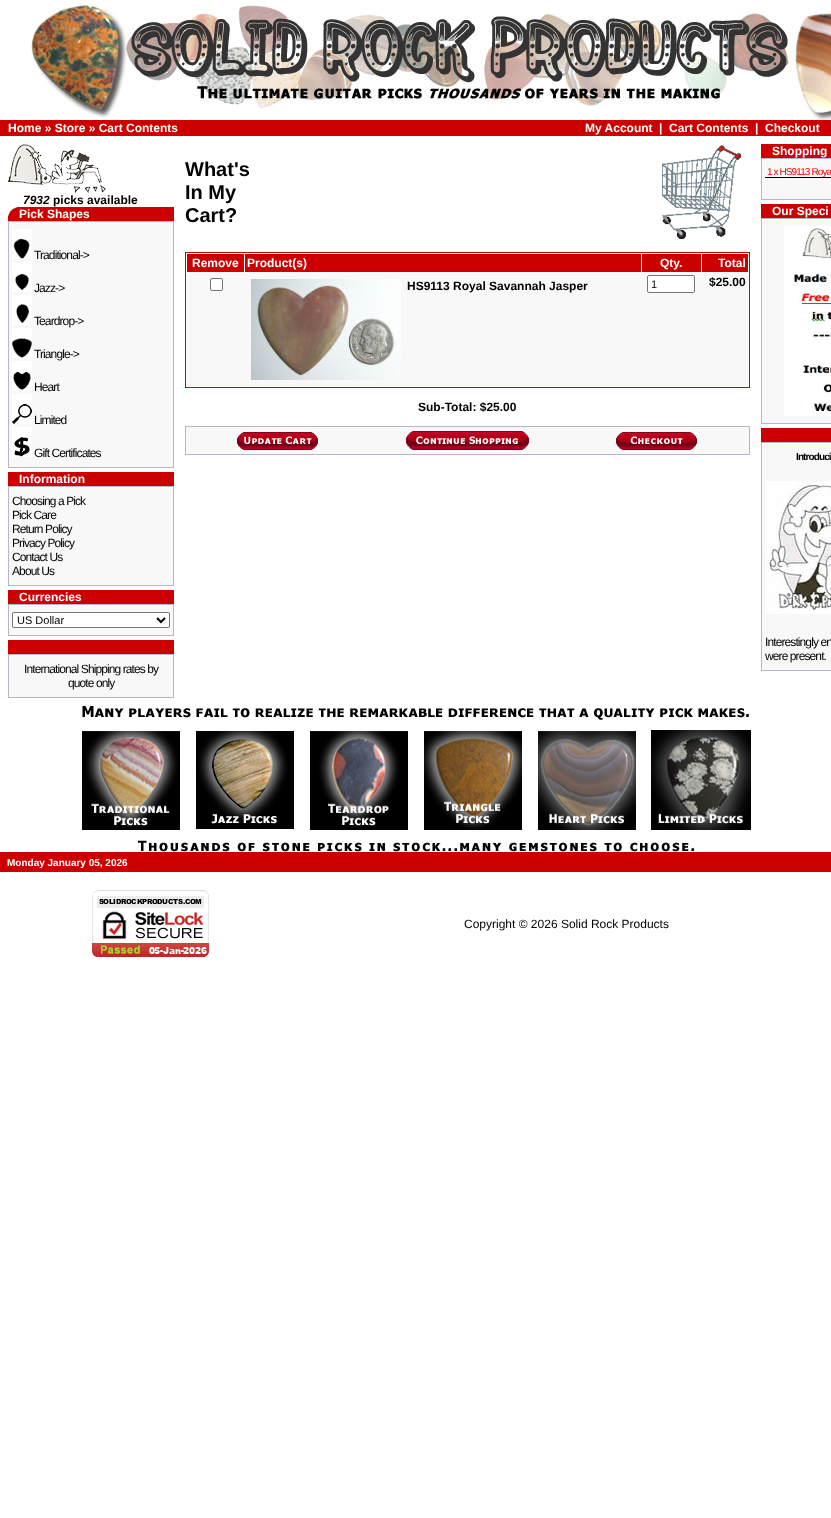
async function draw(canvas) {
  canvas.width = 831;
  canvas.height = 1518;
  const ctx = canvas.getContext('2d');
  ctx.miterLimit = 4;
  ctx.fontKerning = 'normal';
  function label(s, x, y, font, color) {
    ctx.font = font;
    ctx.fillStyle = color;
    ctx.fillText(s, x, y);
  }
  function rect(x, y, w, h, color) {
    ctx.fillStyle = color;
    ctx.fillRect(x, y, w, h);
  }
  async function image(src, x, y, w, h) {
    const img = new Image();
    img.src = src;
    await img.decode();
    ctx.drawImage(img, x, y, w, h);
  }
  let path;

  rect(0, 0, 831, 1518, '#fff');
  await image('assets/img1.png', 31, 0, 800, 120);
  rect(0, 120, 831, 16, '#c00');
  label('Home » Store » Cart Contents', 8, 132, 'bold 12px Liberation Sans', '#fff');
  label('My Account', 585, 132, 'bold 12px Liberation Sans', '#fff');
  label('|', 659, 132, 'bold 12px Liberation Sans', '#fff');
  label('Cart Contents', 669, 132, 'bold 12px Liberation Sans', '#fff');
  label('|', 755, 132, 'bold 12px Liberation Sans', '#fff');
  label('Checkout', 765, 132, 'bold 12px Liberation Sans', '#fff');
  await image('assets/img2.png', 8, 144, 98, 49);
  label('7932', 23, 204, 'italic bold 12px Liberation Sans', '#000');
  label('picks available', 53, 204, 'bold 12px Liberation Sans', '#000');
  rect(8, 207, 166, 14, '#c00');
  await image('assets/img3.png', 8, 207, 9, 9);
  label('Pick Shapes', 19, 218, 'bold 12px Liberation Sans', '#fff');
  rect(8, 221, 166, 247, '#b6b7cb');
  rect(9, 222, 164, 245, '#f8f8f9');
  await image('assets/img4.png', 12, 229, 20, 30);
  ctx.letterSpacing = '-0.9px';
  label('Traditional->', 34, 259, '12px Liberation Sans', '#000');
  await image('assets/img5.png', 12, 262, 20, 30);
  label('Jazz->', 34, 292, '12px Liberation Sans', '#000');
  await image('assets/img6.png', 12, 295, 20, 30);
  label('Teardrop->', 34, 325, '12px Liberation Sans', '#000');
  await image('assets/img7.png', 12, 328, 20, 30);
  label('Triangle->', 34, 358, '12px Liberation Sans', '#000');
  await image('assets/img8.png', 12, 361, 20, 30);
  label('Heart', 34, 391, '12px Liberation Sans', '#000');
  await image('assets/img9.png', 12, 394, 20, 30);
  label('Limited', 34, 424, '12px Liberation Sans', '#000');
  await image('assets/img10.png', 12, 427, 20, 30);
  label('Gift Certificates', 34, 457, '12px Liberation Sans', '#000');
  rect(8, 472, 166, 14, '#c00');
  ctx.letterSpacing = '0px';
  label('Information', 19, 483, 'bold 12px Liberation Sans', '#fff');
  rect(8, 486, 166, 100, '#b6b7cb');
  rect(9, 487, 164, 98, '#f8f8f9');
  ctx.letterSpacing = '-0.9px';
  label('Choosing a Pick', 12, 505, '12px Liberation Sans', '#000');
  label('Pick Care', 12, 519, '12px Liberation Sans', '#000');
  label('Return Policy', 12, 533, '12px Liberation Sans', '#000');
  label('Privacy Policy', 12, 547, '12px Liberation Sans', '#000');
  label('Contact Us', 12, 561, '12px Liberation Sans', '#000');
  label('About Us', 12, 575, '12px Liberation Sans', '#000');
  rect(8, 590, 166, 14, '#c00');
  ctx.letterSpacing = '0px';
  label('Currencies', 19, 601, 'bold 12px Liberation Sans', '#fff');
  rect(8, 604, 166, 32, '#b6b7cb');
  rect(9, 605, 164, 30, '#f8f8f9');
  ctx.fillStyle = '#fff';
  ctx.beginPath();
  ctx.roundRect(12.5, 612.5, 157, 15, 1.5);
  ctx.fill();
  ctx.strokeStyle = '#767676';
  ctx.stroke();
  path = new Path2D('M157 618L161 622L165 618');
  ctx.strokeStyle = '#000';
  ctx.lineWidth = 2;
  ctx.stroke(path);
  label('US Dollar', 17, 624, '11px Liberation Sans', '#000');
  rect(8, 640, 166, 14, '#c00');
  rect(8, 654, 166, 44, '#b6b7cb');
  rect(9, 655, 164, 42, '#f8f8f9');
  ctx.letterSpacing = '-0.9px';
  label('International Shipping rates by', 24, 673, '12px Liberation Sans', '#000');
  label('quote only', 68, 687, '12px Liberation Sans', '#000');
  ctx.letterSpacing = '0px';
  label('What\'s', 185, 176, 'bold 20px Liberation Sans', '#000');
  label('In My', 185, 199, 'bold 20px Liberation Sans', '#000');
  label('Cart?', 185, 222, 'bold 20px Liberation Sans', '#000');
  await image('assets/img11.png', 662, 145, 79, 94);
  ctx.strokeStyle = '#c00';
  ctx.lineWidth = 1;
  ctx.strokeRect(185.5, 252.5, 564, 135);
  rect(187, 254, 57, 18, '#c00');
  label('Remove', 192, 267, 'bold 12px Liberation Sans', '#fff');
  rect(245, 254, 396, 18, '#c00');
  label('Product(s)', 247, 267, 'bold 12px Liberation Sans', '#fff');
  rect(642, 254, 59, 18, '#c00');
  label('Qty.', 660, 267, 'bold 12px Liberation Sans', '#fff');
  rect(702, 254, 46, 18, '#c00');
  label('Total', 718, 267, 'bold 12px Liberation Sans', '#fff');
  rect(187, 273, 561, 113, '#f8f8f9');
  ctx.fillStyle = '#fff';
  ctx.beginPath();
  ctx.roundRect(210.5, 278.5, 12, 12, 1.5);
  ctx.fill();
  ctx.strokeStyle = '#767676';
  ctx.stroke();
  await image('assets/img12.png', 251, 279, 150, 101);
  label('HS9113 Royal Savannah Jasper', 407, 290, 'bold 12px Liberation Sans', '#000');
  ctx.fillStyle = '#fff';
  ctx.beginPath();
  ctx.roundRect(647.5, 275.5, 47, 17, 1.5);
  ctx.fill();
  ctx.stroke();
  label('1', 651, 288, '11px Liberation Sans', '#000');
  label('$25.00', 709, 286, 'bold 12px Liberation Sans', '#000');
  label('Sub-Total: $25.00', 418, 411, 'bold 12px Liberation Sans', '#000');
  rect(185, 426, 565, 29, '#b6b7cb');
  rect(186, 427, 563, 27, '#f8f8f9');
  await image('assets/img13.png', 237, 432, 81, 18);
  await image('assets/img14.png', 406, 431, 123, 19);
  await image('assets/img15.png', 616, 432, 81, 18);
  rect(761, 144, 70, 14, '#c00');
  label('Shopping', 772, 155, 'bold 12px Liberation Sans', '#fff');
  rect(761, 158, 70, 42, '#b6b7cb');
  rect(762, 159, 69, 40, '#f8f8f9');
  ctx.letterSpacing = '-0.9px';
  label('1 x HS9113 Roya', 767, 175, '10px Liberation Sans', '#f00');
  rect(765, 177, 66, 1, '#000');
  rect(761, 204, 70, 14, '#c00');
  ctx.letterSpacing = '0px';
  label('Our Speci', 772, 215, 'bold 12px Liberation Sans', '#fff');
  rect(761, 218, 70, 206, '#b6b7cb');
  rect(762, 219, 69, 204, '#f8f8f9');
  await image('assets/img16.png', 784, 226, 47, 190);
  rect(761, 428, 70, 14, '#c00');
  rect(761, 442, 70, 229, '#b6b7cb');
  rect(762, 443, 69, 227, '#f8f8f9');
  ctx.letterSpacing = '-0.9px';
  label('Introduci', 796, 460, 'bold 10px Liberation Sans', '#000');
  await image('assets/img17.png', 765, 481, 66, 133);
  label('Interestingly en', 765, 646, '12px Liberation Sans', '#000');
  label('were present.', 765, 660, '12px Liberation Sans', '#000');
  await image('assets/img18.png', 82, 706, 667, 14);
  await image('assets/img19.png', 82, 731, 98, 99);
  await image('assets/img20.png', 196, 731, 98, 98);
  await image('assets/img21.png', 310, 731, 98, 99);
  await image('assets/img22.png', 424, 731, 98, 99);
  await image('assets/img23.png', 538, 731, 98, 99);
  await image('assets/img24.png', 651, 730, 100, 100);
  await image('assets/img25.png', 135, 840, 560, 12);
  rect(0, 852, 831, 20, '#c00');
  ctx.letterSpacing = '0px';
  label('Monday January 05, 2026', 7, 866, 'bold 10px Liberation Sans', '#fff');
  await image('assets/img26.png', 92, 890, 117, 67);
  label('Copyright © 2026 Solid Rock Products', 464, 928, '12px Liberation Sans', '#000');
}

draw(document.querySelector('canvas'));
